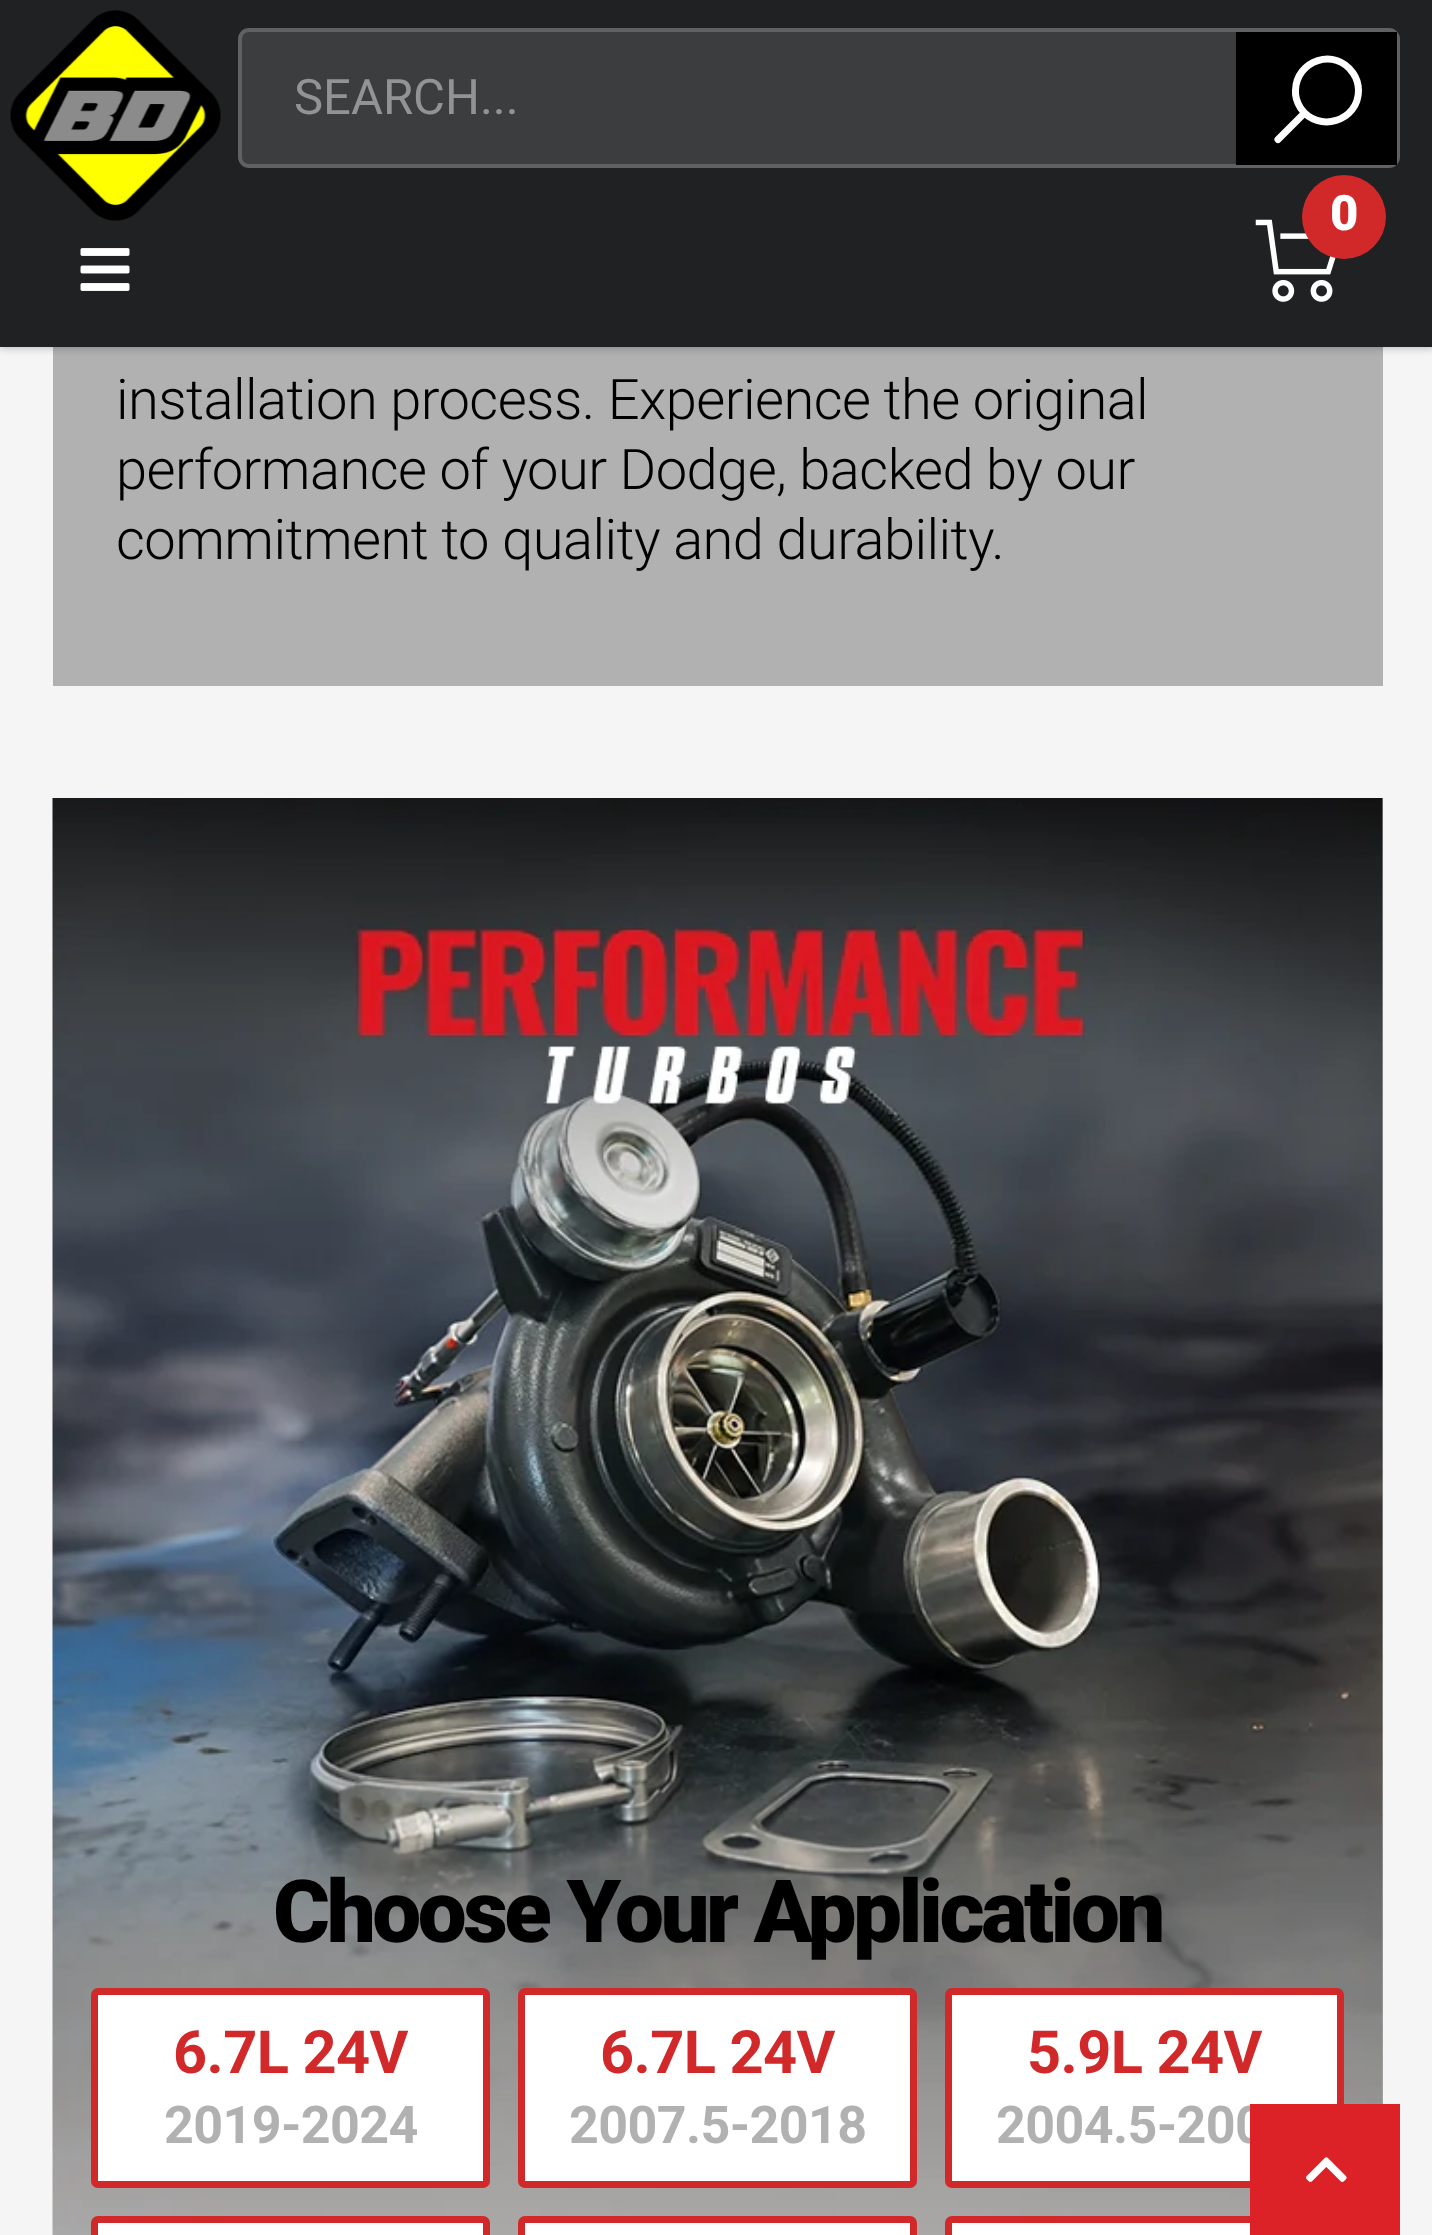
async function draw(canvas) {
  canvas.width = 1432;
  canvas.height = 2235;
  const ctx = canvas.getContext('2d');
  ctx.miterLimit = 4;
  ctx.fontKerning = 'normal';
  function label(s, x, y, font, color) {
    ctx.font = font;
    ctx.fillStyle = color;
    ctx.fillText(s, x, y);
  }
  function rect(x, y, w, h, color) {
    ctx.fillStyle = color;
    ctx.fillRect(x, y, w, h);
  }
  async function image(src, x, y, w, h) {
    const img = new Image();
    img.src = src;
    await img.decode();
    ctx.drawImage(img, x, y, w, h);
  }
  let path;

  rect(0, 0, 1432, 2235, '#f5f5f5');
  rect(53, 347, 1330, 339, '#b1b1b1');
  ctx.fillStyle = '#0000004d';
  ctx.filter = 'blur(5px)';
  ctx.beginPath();
  ctx.rect(0, 0, 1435, 347);
  ctx.fill();
  ctx.filter = 'none';
  rect(0, 0, 1432, 347, '#1f2123');
  ctx.fillStyle = '#3c3d3f';
  ctx.beginPath();
  ctx.roundRect(240, 30, 1158, 136, 9);
  ctx.fill();
  ctx.strokeStyle = '#616161';
  ctx.lineWidth = 4;
  ctx.stroke();
  label('SEARCH...', 294, 114, '49px Roboto', '#939394');
  rect(1236, 32, 161, 133, '#000');
  path = new Path2D('M1278 139.5L1304 113.5M1358.5 90.5C1358.5 121.5 1318 133.5 1300.5 108C1297.5 103 1295 96.5 1295.5 90.5C1296 60 1335.5 47 1353 73C1356.5 78 1358.5 84.5 1358.5 90.5Z');
  ctx.strokeStyle = '#fff';
  ctx.lineWidth = 7;
  ctx.lineCap = 'round';
  ctx.lineJoin = 'round';
  ctx.stroke(path);
  await image('assets/img1.png', 10, 10, 211, 211);
  await image('assets/img2.png', 80, 248, 50, 43);
  await image('assets/img3.png', 1255, 219, 81, 83);
  ctx.fillStyle = '#d1292a';
  ctx.beginPath();
  ctx.arc(1344, 217, 42, 0, 2 * Math.PI);
  ctx.fill();
  label('0', 1330, 230, '900 49px Roboto', '#fff');
  ctx.letterSpacing = '-0.55px';
  label('installation process. Experience the original', 116, 419, '300 56px Roboto', '#000');
  label('performance of your Dodge, backed by our', 116, 489, '300 56px Roboto', '#000');
  label('commitment to quality and durability.', 116, 559, '300 56px Roboto', '#000');
  rect(1382, 798, 1, 1306, '#b1b1b1');
  await image('assets/img4.png', 52, 798, 1331, 1437);
  ctx.letterSpacing = '-3.5px';
  label('Choose Your Application', 273, 1942, '900 87.1px Roboto', '#000');
  ctx.fillStyle = '#fff';
  ctx.beginPath();
  ctx.roundRect(94.5, 1991.5, 392, 193, 3.5);
  ctx.fill();
  ctx.strokeStyle = '#d1292a';
  ctx.lineJoin = 'miter';
  ctx.stroke();
  ctx.letterSpacing = '-0.6px';
  label('6.7L 24V', 173, 2073, 'bold 59.5px Roboto', '#d1292a');
  label('2019-2024', 164, 2143, 'bold 52px Roboto', '#b1b1b1');
  ctx.fillStyle = '#fff';
  ctx.beginPath();
  ctx.roundRect(521.5, 1991.5, 392, 193, 3.5);
  ctx.fill();
  ctx.stroke();
  label('6.7L 24V', 600, 2073, 'bold 59.5px Roboto', '#d1292a');
  label('2007.5-2018', 569, 2143, 'bold 52px Roboto', '#b1b1b1');
  ctx.fillStyle = '#fff';
  ctx.beginPath();
  ctx.roundRect(948.5, 1991.5, 392, 193, 3.5);
  ctx.fill();
  ctx.stroke();
  label('5.9L 24V', 1027, 2073, 'bold 59.5px Roboto', '#d1292a');
  label('2004.5-200', 996, 2143, 'bold 52px Roboto', '#b1b1b1');
  ctx.fillStyle = '#fff';
  ctx.beginPath();
  ctx.roundRect(94.5, 2219.5, 392, 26, 3.5);
  ctx.fill();
  ctx.stroke();
  ctx.beginPath();
  ctx.roundRect(521.5, 2219.5, 392, 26, 3.5);
  ctx.fill();
  ctx.stroke();
  ctx.beginPath();
  ctx.roundRect(948.5, 2219.5, 392, 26, 3.5);
  ctx.fill();
  ctx.stroke();
  rect(1250, 2104, 150, 131, '#dc2127');
  await image('assets/img5.png', 1306, 2157, 41, 25);
}

draw(document.querySelector('canvas'));
